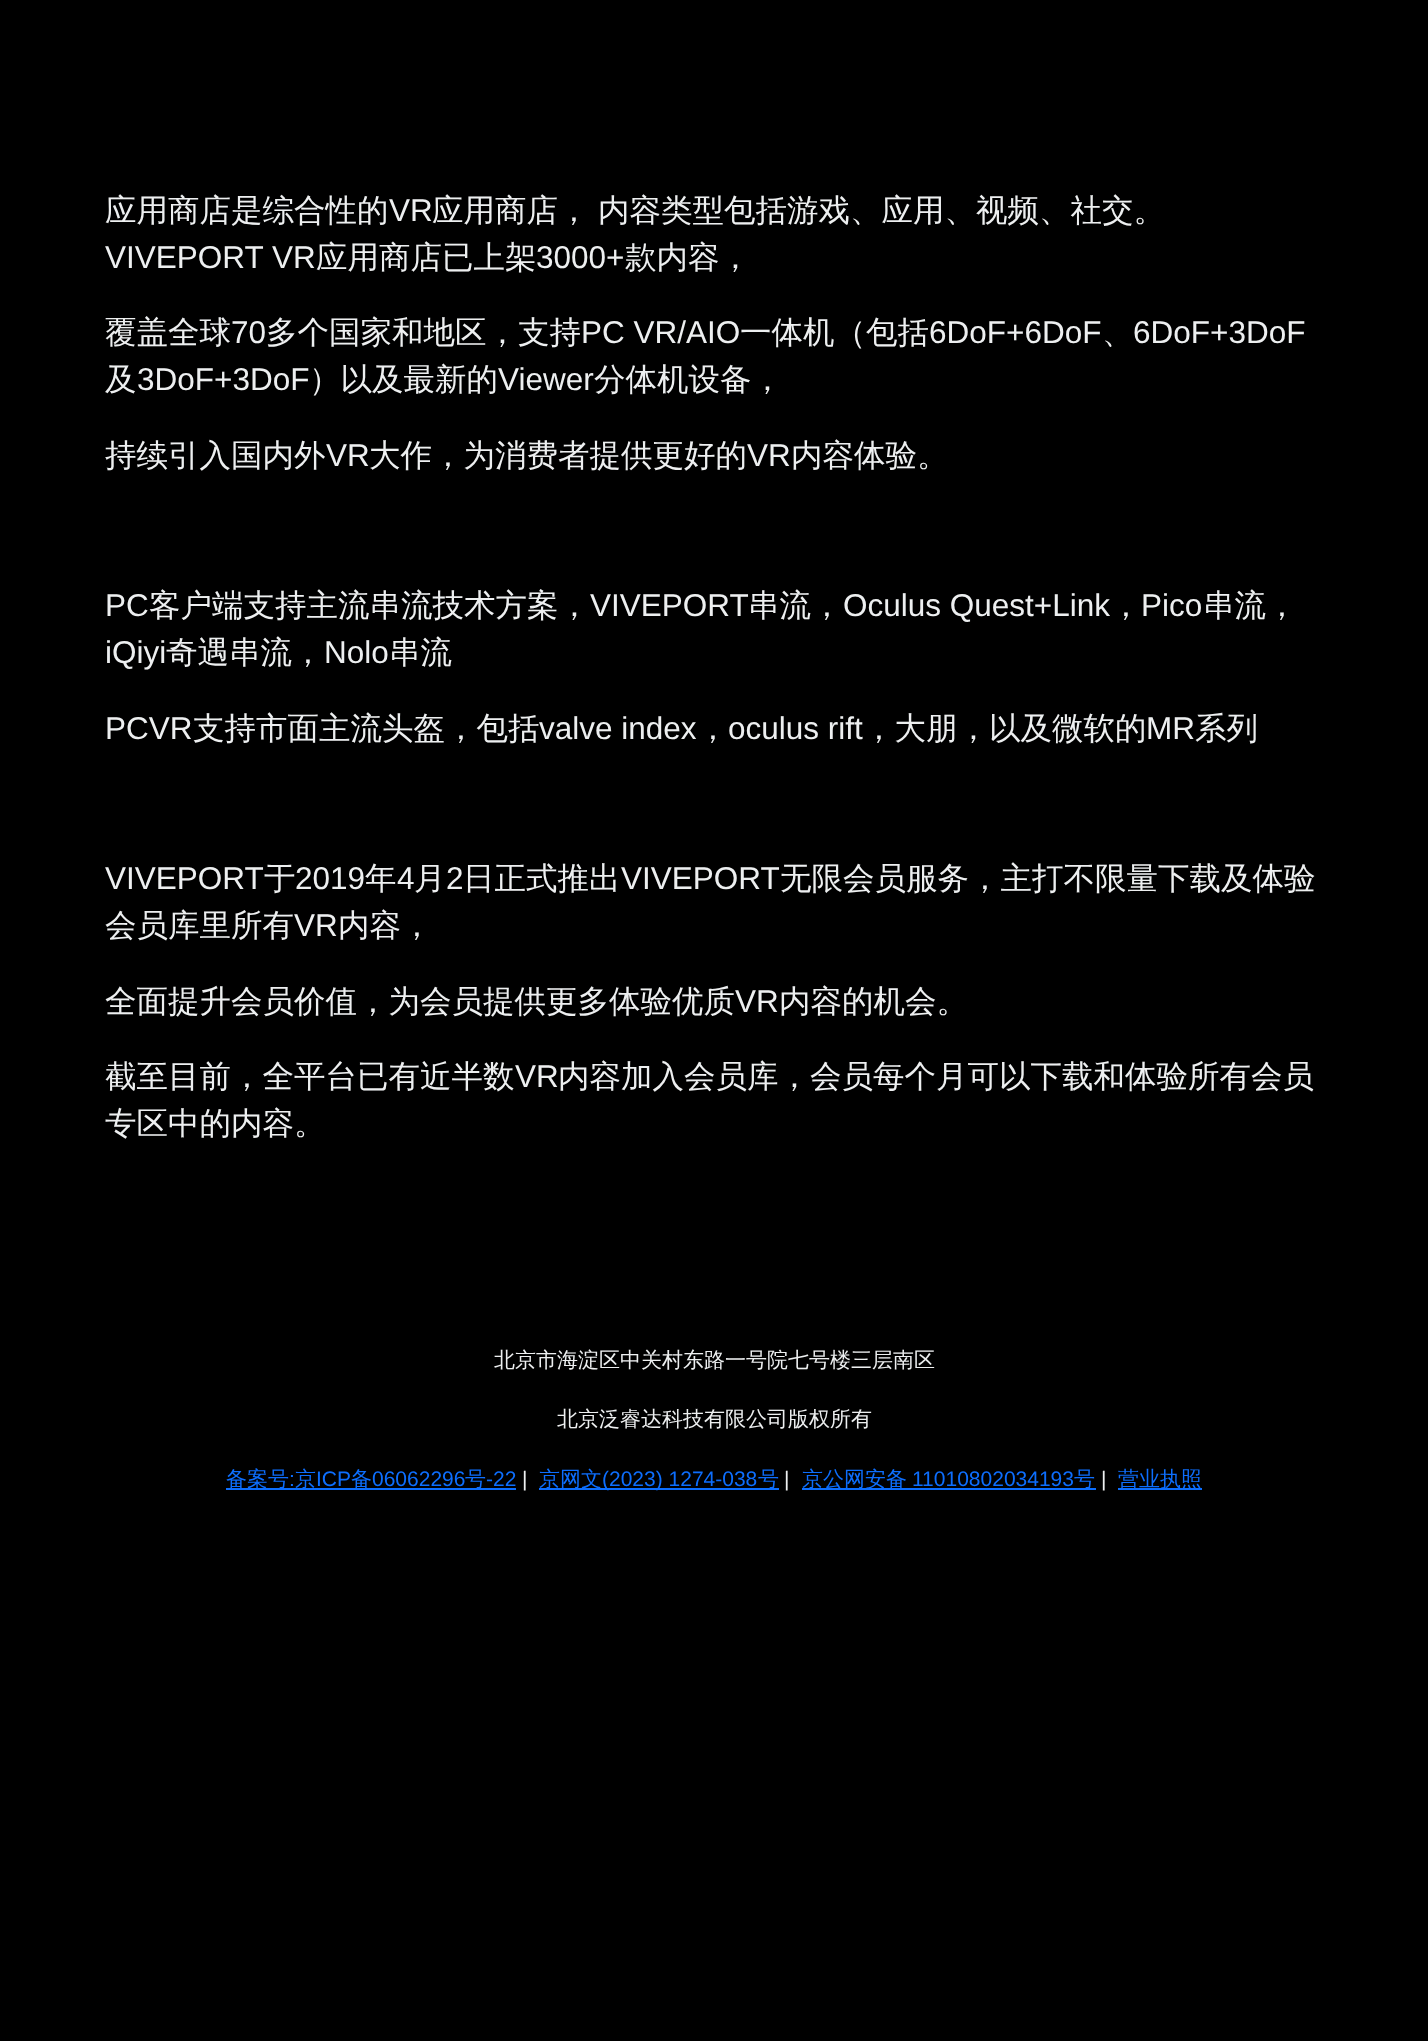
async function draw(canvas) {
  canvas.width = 1428;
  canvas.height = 2041;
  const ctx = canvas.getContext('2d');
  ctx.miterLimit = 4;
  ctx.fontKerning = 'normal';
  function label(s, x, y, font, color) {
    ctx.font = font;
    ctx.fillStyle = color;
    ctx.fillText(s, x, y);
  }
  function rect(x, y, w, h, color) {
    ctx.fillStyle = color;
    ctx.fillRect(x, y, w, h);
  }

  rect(0, 0, 1428, 2041, '#000');
  label('应用商店是综合性的', 105, 221, '500 31.5px WenQuanYi Zen Hei', '#edeff0');
  label('VR', 389, 221, '31.5px Liberation Sans', '#edeff0');
  ctx.wordSpacing = '-1px';
  label('应用商店， 内容类型包括游戏、应用、视频、社交。', 432, 221, '500 31.5px WenQuanYi Zen Hei', '#edeff0');
  ctx.wordSpacing = '0px';
  label('VIVEPORT VR', 105, 268, '31.5px Liberation Sans', '#edeff0');
  label('应用商店已上架', 316, 268, '500 31.5px WenQuanYi Zen Hei', '#edeff0');
  label('3000+', 536, 268, '31.5px Liberation Sans', '#edeff0');
  label('款内容，', 625, 268, '500 31.5px WenQuanYi Zen Hei', '#edeff0');
  label('覆盖全球', 105, 343, '500 31.5px WenQuanYi Zen Hei', '#edeff0');
  label('70', 231, 343, '31.5px Liberation Sans', '#edeff0');
  label('多个国家和地区，支持', 266, 343, '500 31.5px WenQuanYi Zen Hei', '#edeff0');
  label('PC VR/AIO', 581, 343, '31.5px Liberation Sans', '#edeff0');
  label('一体机（包括', 740, 343, '500 31.5px WenQuanYi Zen Hei', '#edeff0');
  label('6DoF+6DoF', 929, 343, '31.5px Liberation Sans', '#edeff0');
  label('、', 1102, 343, '500 31.5px WenQuanYi Zen Hei', '#edeff0');
  label('6DoF+3DoF', 1133, 343, '31.5px Liberation Sans', '#edeff0');
  label('及', 105, 390, '500 31.5px WenQuanYi Zen Hei', '#edeff0');
  label('3DoF+3DoF', 137, 390, '31.5px Liberation Sans', '#edeff0');
  label('）以及最新的', 309, 390, '500 31.5px WenQuanYi Zen Hei', '#edeff0');
  label('Viewer', 498, 390, '31.5px Liberation Sans', '#edeff0');
  label('分体机设备，', 594, 390, '500 31.5px WenQuanYi Zen Hei', '#edeff0');
  label('持续引入国内外', 105, 466, '500 31.5px WenQuanYi Zen Hei', '#edeff0');
  label('VR', 326, 466, '31.5px Liberation Sans', '#edeff0');
  label('大作，为消费者提供更好的', 369, 466, '500 31.5px WenQuanYi Zen Hei', '#edeff0');
  label('VR', 747, 466, '31.5px Liberation Sans', '#edeff0');
  label('内容体验。', 791, 466, '500 31.5px WenQuanYi Zen Hei', '#edeff0');
  label('PC', 105, 616, '31.5px Liberation Sans', '#edeff0');
  label('客户端支持主流串流技术方案，', 149, 616, '500 31.5px WenQuanYi Zen Hei', '#edeff0');
  label('VIVEPORT', 590, 616, '31.5px Liberation Sans', '#edeff0');
  label('串流，', 748, 616, '500 31.5px WenQuanYi Zen Hei', '#edeff0');
  label('Oculus Quest+Link', 843, 616, '31.5px Liberation Sans', '#edeff0');
  label('，', 1110, 616, '500 31.5px WenQuanYi Zen Hei', '#edeff0');
  label('Pico', 1141, 616, '31.5px Liberation Sans', '#edeff0');
  label('串流，', 1203, 616, '500 31.5px WenQuanYi Zen Hei', '#edeff0');
  label('iQiyi', 105, 663, '31.5px Liberation Sans', '#edeff0');
  label('奇遇串流，', 166, 663, '500 31.5px WenQuanYi Zen Hei', '#edeff0');
  label('Nolo', 324, 663, '31.5px Liberation Sans', '#edeff0');
  label('串流', 389, 663, '500 31.5px WenQuanYi Zen Hei', '#edeff0');
  label('PCVR', 105, 739, '31.5px Liberation Sans', '#edeff0');
  label('支持市面主流头盔，包括', 193, 739, '500 31.5px WenQuanYi Zen Hei', '#edeff0');
  label('valve index', 539, 739, '31.5px Liberation Sans', '#edeff0');
  label('，', 697, 739, '500 31.5px WenQuanYi Zen Hei', '#edeff0');
  label('oculus rift', 728, 739, '31.5px Liberation Sans', '#edeff0');
  label('，大朋，以及微软的', 863, 739, '500 31.5px WenQuanYi Zen Hei', '#edeff0');
  label('MR', 1146, 739, '31.5px Liberation Sans', '#edeff0');
  label('系列', 1195, 739, '500 31.5px WenQuanYi Zen Hei', '#edeff0');
  label('VIVEPORT', 105, 889, '31.5px Liberation Sans', '#edeff0');
  label('于', 264, 889, '500 31.5px WenQuanYi Zen Hei', '#edeff0');
  label('2019', 295, 889, '31.5px Liberation Sans', '#edeff0');
  label('年', 365, 889, '500 31.5px WenQuanYi Zen Hei', '#edeff0');
  label('4', 397, 889, '31.5px Liberation Sans', '#edeff0');
  label('月', 414, 889, '500 31.5px WenQuanYi Zen Hei', '#edeff0');
  label('2', 446, 889, '31.5px Liberation Sans', '#edeff0');
  label('日正式推出', 463, 889, '500 31.5px WenQuanYi Zen Hei', '#edeff0');
  label('VIVEPORT', 621, 889, '31.5px Liberation Sans', '#edeff0');
  label('无限会员服务，主打不限量下载及体验', 780, 889, '500 31.5px WenQuanYi Zen Hei', '#edeff0');
  label('会员库里所有', 105, 936, '500 31.5px WenQuanYi Zen Hei', '#edeff0');
  label('VR', 294, 936, '31.5px Liberation Sans', '#edeff0');
  label('内容，', 338, 936, '500 31.5px WenQuanYi Zen Hei', '#edeff0');
  label('全面提升会员价值，为会员提供更多体验优质', 105, 1012, '500 31.5px WenQuanYi Zen Hei', '#edeff0');
  label('VR', 735, 1012, '31.5px Liberation Sans', '#edeff0');
  label('内容的机会。', 779, 1012, '500 31.5px WenQuanYi Zen Hei', '#edeff0');
  label('截至目前，全平台已有近半数', 105, 1087, '500 31.5px WenQuanYi Zen Hei', '#edeff0');
  label('VR', 515, 1087, '31.5px Liberation Sans', '#edeff0');
  label('内容加入会员库，会员每个月可以下载和体验所有会员', 558, 1087, '500 31.5px WenQuanYi Zen Hei', '#edeff0');
  label('专区中的内容。', 105, 1134, '500 31.5px WenQuanYi Zen Hei', '#edeff0');
  label('北京市海淀区中关村东路一号院七号楼三层南区', 494, 1367, '500 21px WenQuanYi Zen Hei', '#edeff0');
  label('北京泛睿达科技有限公司版权所有', 557, 1426, '500 21px WenQuanYi Zen Hei', '#edeff0');
  rect(226, 1488, 290, 2, '#0d6efd');
  label('备案号', 226, 1486, '500 21px WenQuanYi Zen Hei', '#0d6efd');
  label(':', 289, 1486, '21px Liberation Sans', '#0d6efd');
  label('京', 295, 1486, '500 21px WenQuanYi Zen Hei', '#0d6efd');
  label('ICP', 316, 1486, '21px Liberation Sans', '#0d6efd');
  label('备', 351, 1486, '500 21px WenQuanYi Zen Hei', '#0d6efd');
  label('06062296', 372, 1486, '21px Liberation Sans', '#0d6efd');
  label('号', 465, 1486, '500 21px WenQuanYi Zen Hei', '#0d6efd');
  label('-22', 486, 1486, '21px Liberation Sans', '#0d6efd');
  label('|', 522, 1486, '21px Liberation Sans', '#edeff0');
  rect(539, 1488, 240, 2, '#0d6efd');
  label('京网文', 539, 1486, '500 21px WenQuanYi Zen Hei', '#0d6efd');
  label('(2023) 1274-038', 602, 1486, '21px Liberation Sans', '#0d6efd');
  label('号', 758, 1486, '500 21px WenQuanYi Zen Hei', '#0d6efd');
  label('|', 784, 1486, '21px Liberation Sans', '#edeff0');
  rect(802, 1488, 294, 2, '#0d6efd');
  label('京公网安备', 802, 1486, '500 21px WenQuanYi Zen Hei', '#0d6efd');
  label('11010802034193', 912, 1486, '21px Liberation Sans', '#0d6efd');
  label('号', 1074, 1486, '500 21px WenQuanYi Zen Hei', '#0d6efd');
  label('|', 1101, 1486, '21px Liberation Sans', '#edeff0');
  rect(1118, 1488, 84, 2, '#0d6efd');
  label('营业执照', 1118, 1486, '500 21px WenQuanYi Zen Hei', '#0d6efd');
}

draw(document.querySelector('canvas'));
